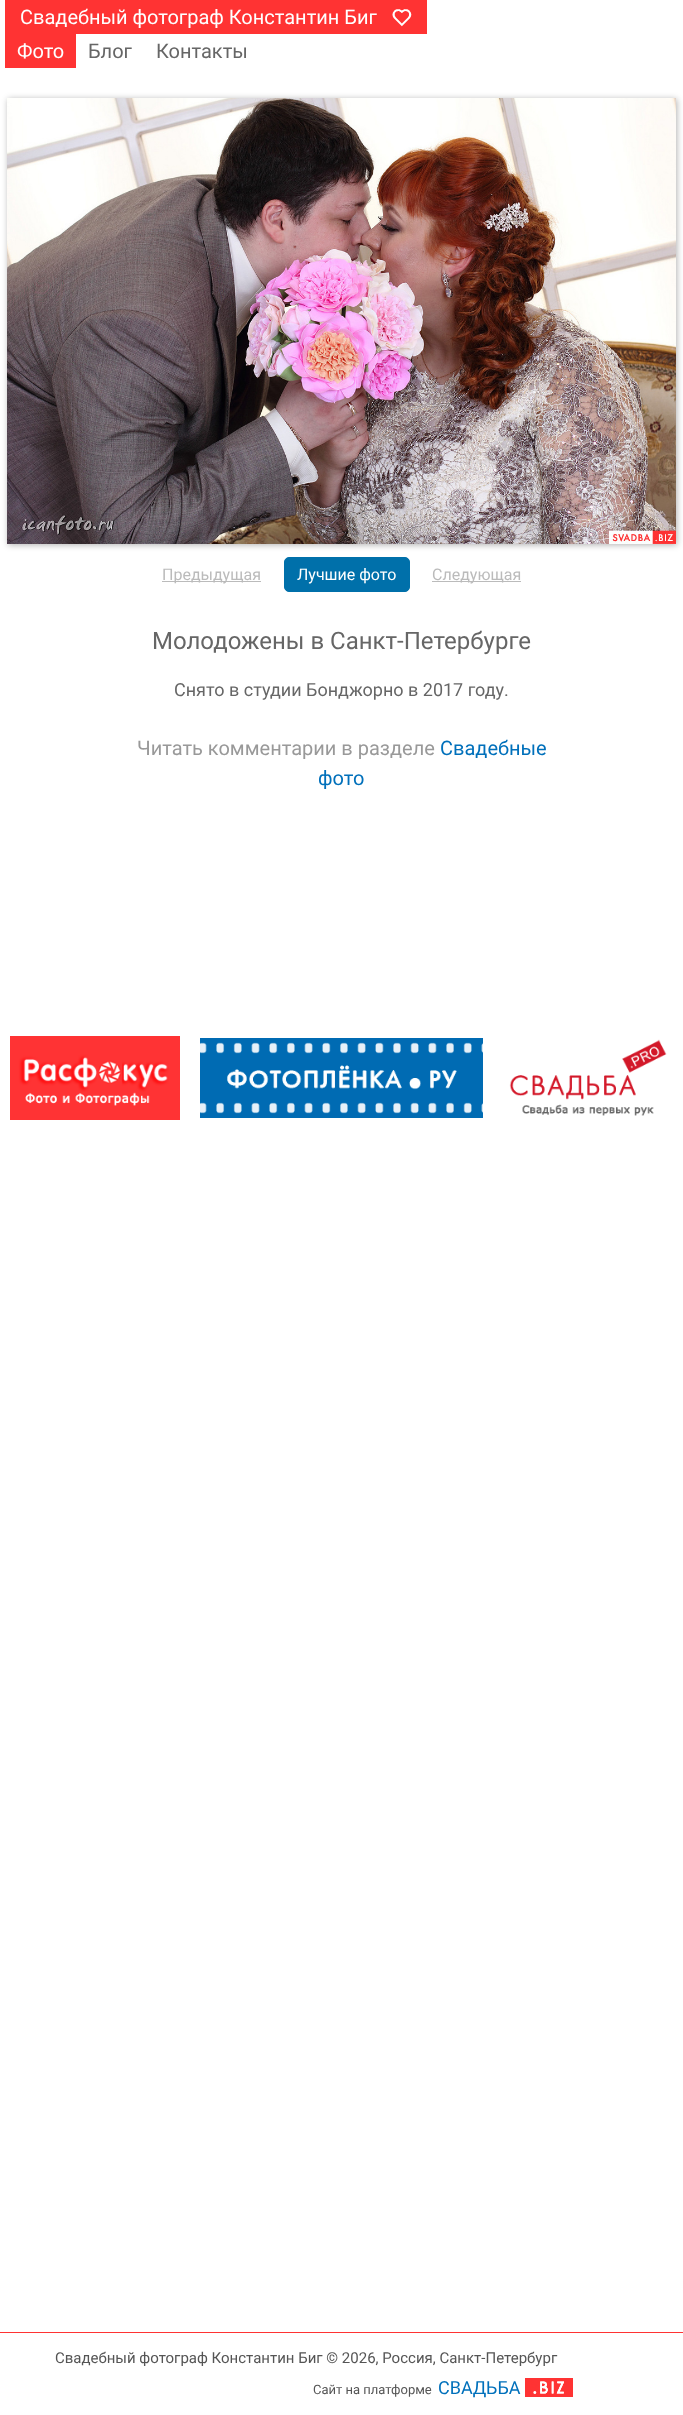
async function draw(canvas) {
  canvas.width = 683;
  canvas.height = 2415;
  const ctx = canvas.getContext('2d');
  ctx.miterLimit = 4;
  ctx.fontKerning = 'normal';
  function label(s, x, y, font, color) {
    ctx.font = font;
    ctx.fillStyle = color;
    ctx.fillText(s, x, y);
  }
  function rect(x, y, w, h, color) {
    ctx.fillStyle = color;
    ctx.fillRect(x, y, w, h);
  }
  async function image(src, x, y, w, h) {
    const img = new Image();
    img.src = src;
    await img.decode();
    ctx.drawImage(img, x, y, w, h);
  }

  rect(0, 0, 683, 2415, '#fff');
  rect(5, 0, 422, 34, '#f33');
  await image('assets/img1.png', 392, 9, 20, 18);
  label('Свадебный фотограф Константин Биг', 20, 24, '20px Roboto', '#fff');
  rect(5, 34, 71, 34, '#f33');
  label('Фото', 17, 58, '20px Roboto', '#fff');
  label('Блог', 88, 58, '20px Roboto', '#666');
  label('Контакты', 156, 58, '20px Roboto', '#666');
  ctx.fillStyle = '#0000004d';
  ctx.filter = 'blur(3px)';
  ctx.beginPath();
  ctx.rect(8, 99, 669, 446);
  ctx.fill();
  ctx.filter = 'none';
  await image('assets/img2.png', 7, 98, 669, 446);
  rect(162, 581, 99, 1, '#bbb');
  label('Предыдущая', 162, 580, '16px Roboto', '#bbb');
  ctx.fillStyle = '#0070aa';
  ctx.beginPath();
  ctx.roundRect(284.5, 557.5, 125, 34, 4.5);
  ctx.fill();
  ctx.strokeStyle = '#0070aa';
  ctx.stroke();
  label('Лучшие фото', 297, 580, '16px Roboto', '#fff');
  rect(432, 581, 89, 1, '#bbb');
  label('Следующая', 432, 580, '16px Roboto', '#bbb');
  label('Молодожены в Санкт-Петербурге', 152, 649, '24px Roboto', '#666');
  label('Снято в студии Бонджорно в 2017 году.', 174, 696, '18px Roboto', '#666');
  label('Читать комментарии в разделе', 137, 755, '20px Roboto', '#999');
  label('Свадебные', 440, 755, '20px Roboto', '#0070bb');
  label('фото', 318, 785, '20px Roboto', '#0070bb');
  await image('assets/img3.png', 10, 1036, 170, 84);
  await image('assets/img4.png', 200, 1038, 283, 80);
  await image('assets/img5.png', 509, 1039, 158, 77);
  rect(0, 2332, 683, 1, '#f33');
  label('Свадебный фотограф Константин Биг © 2026, Россия, Санкт-Петербург', 55, 2363, '15px Roboto', '#555');
  label('Сайт на платформе', 313, 2394, '13px Roboto', '#555');
  label('СВАДЬБА', 438, 2394, '18px Roboto', '#0070bb');
  await image('assets/img6.png', 525, 2378, 48, 19);
}

draw(document.querySelector('canvas'));
